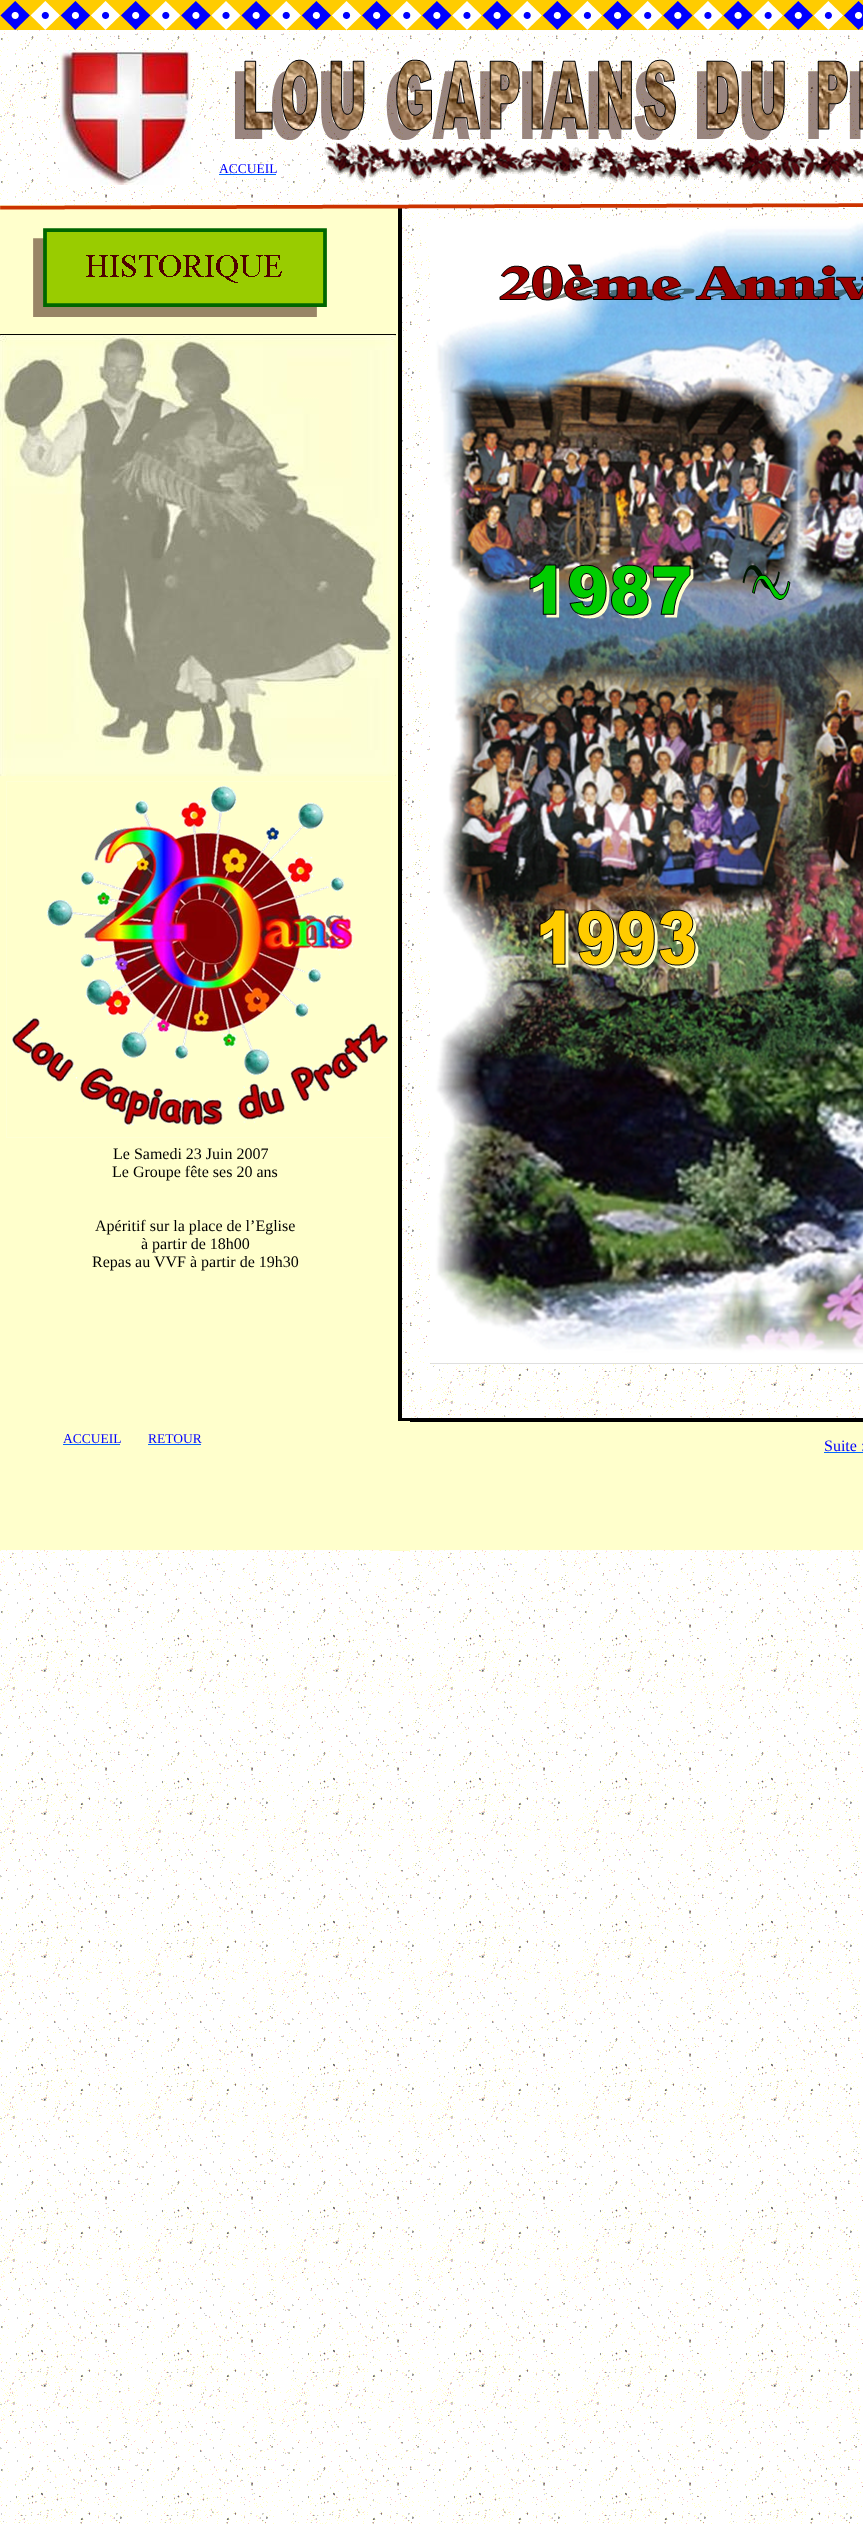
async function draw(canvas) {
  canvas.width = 863;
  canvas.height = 2524;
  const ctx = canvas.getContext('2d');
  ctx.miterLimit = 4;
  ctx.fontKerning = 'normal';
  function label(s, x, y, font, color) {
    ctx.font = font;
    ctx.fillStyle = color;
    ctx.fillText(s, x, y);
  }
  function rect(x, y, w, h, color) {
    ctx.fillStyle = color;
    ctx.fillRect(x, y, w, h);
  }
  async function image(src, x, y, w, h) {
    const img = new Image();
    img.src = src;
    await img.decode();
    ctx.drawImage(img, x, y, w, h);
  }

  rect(0, 0, 863, 2524, '#fff');
  await image('assets/img1.png', 0, 30, 863, 2494);
  await image('assets/img2.png', 0, 0, 863, 30);
  await image('assets/img3.png', 60, 50, 131, 135);
  await image('assets/img4.png', 235, 59, 628, 81);
  label('ACCUEIL', 219, 173, '13.5px Liberation Serif', '#00f');
  rect(219, 174, 57, 1, '#06f');
  await image('assets/img5.png', 323, 142, 540, 41);
  await image('assets/img7.png', 0, 205, 402, 1345);
  await image('assets/img6.png', 0, 203, 863, 7);
  await image('assets/img8.png', 430, 220, 433, 1144);
  await image('assets/img9.png', 33, 228, 294, 89);
  await image('assets/img10.png', 499, 264, 364, 37);
  await image('assets/img11.png', 0, 334, 396, 442);
  await image('assets/img12.png', 529, 564, 165, 55);
  await image('assets/img13.png', 742, 565, 49, 35);
  await image('assets/img14.png', 6, 781, 386, 357);
  await image('assets/img15.png', 539, 909, 160, 60);
  label('Le Samedi 23 Juin 2007', 113, 1159, '16px Liberation Serif', '#000');
  label('Le Groupe fête ses 20 ans', 112, 1177, '16px Liberation Serif', '#000');
  label('Apéritif sur la place de l’Eglise', 95, 1231, '16px Liberation Serif', '#000');
  label('à partir de 18h00', 141, 1249, '16px Liberation Serif', '#000');
  label('Repas au VVF à partir de 19h30', 92, 1267, '16px Liberation Serif', '#000');
  await image('assets/img16.png', 400, 1418, 463, 132);
  label('ACCUEIL', 63, 1443, '13.5px Liberation Serif', '#00f');
  rect(63, 1444, 57, 1, '#06f');
  label('RETOUR', 148, 1443, '13.5px Liberation Serif', '#00f');
  rect(148, 1444, 53, 1, '#06f');
  rect(390, 1421, 20, 130, '#ffc');
  label('Suite :', 824, 1451, '16px Liberation Serif', '#00f');
  rect(824, 1452, 39, 1, '#06f');
}

draw(document.querySelector('canvas'));
